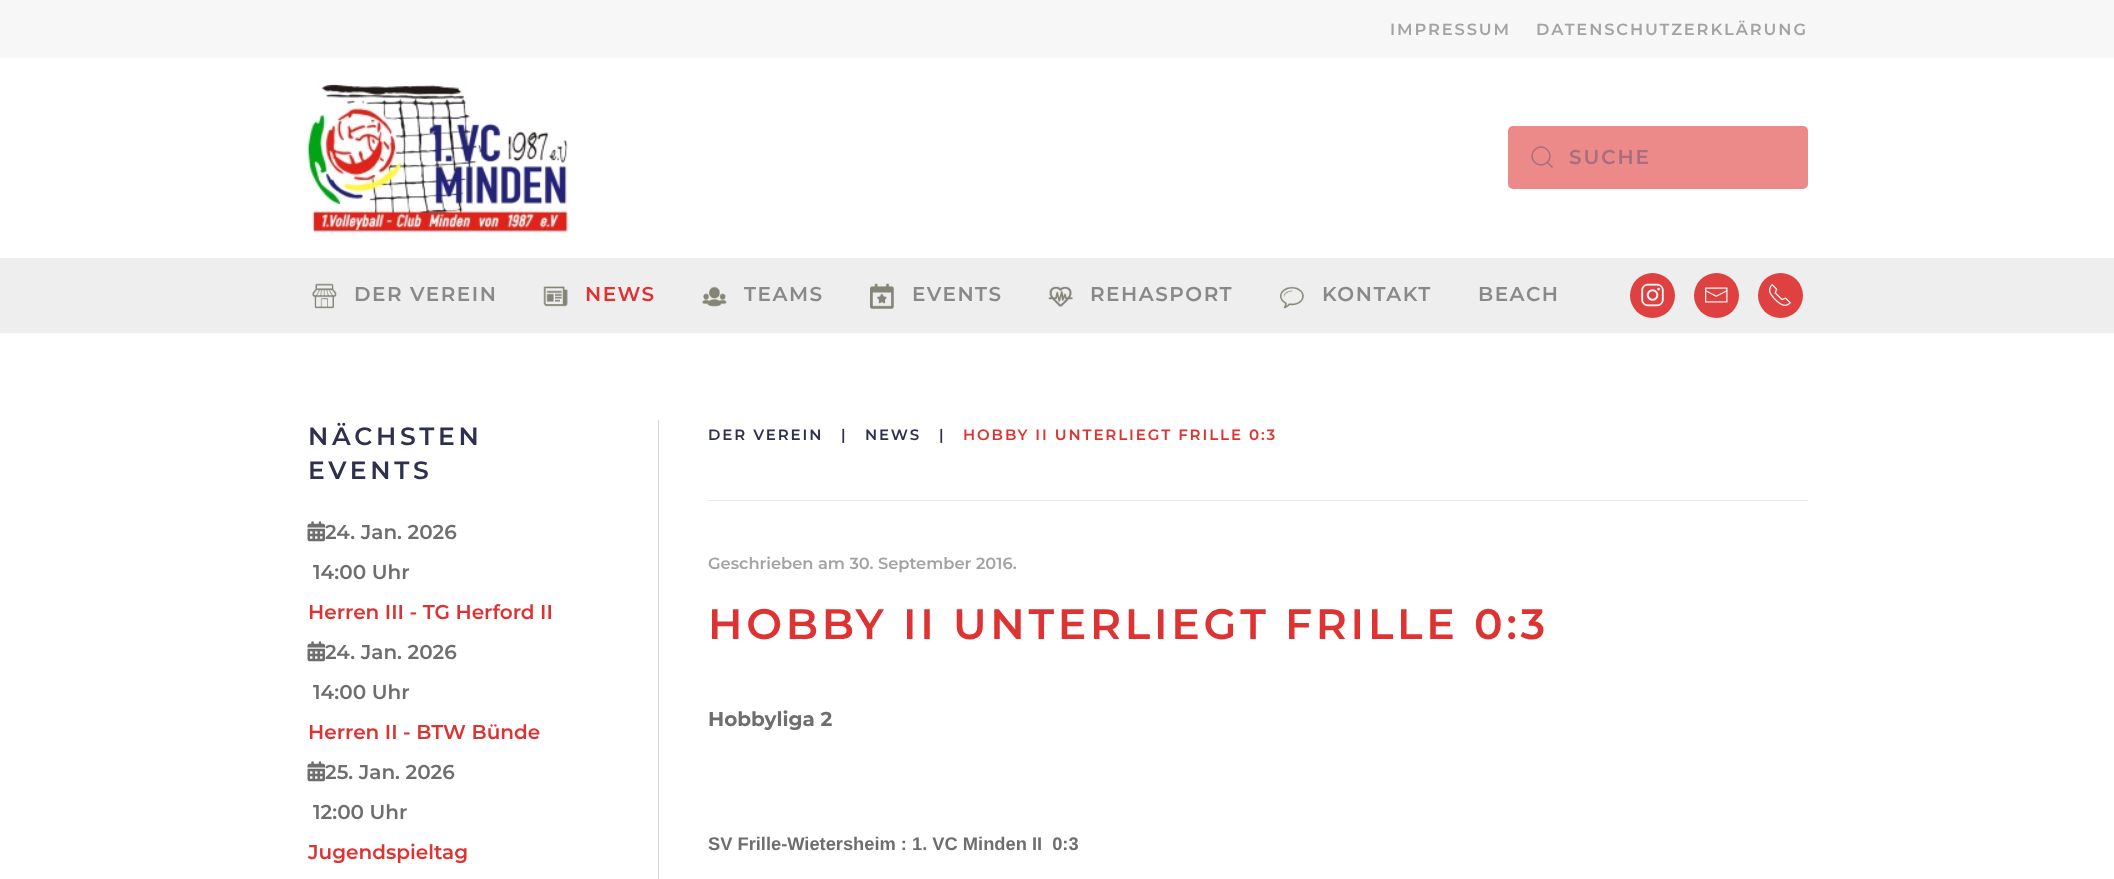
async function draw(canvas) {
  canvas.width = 2114;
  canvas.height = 879;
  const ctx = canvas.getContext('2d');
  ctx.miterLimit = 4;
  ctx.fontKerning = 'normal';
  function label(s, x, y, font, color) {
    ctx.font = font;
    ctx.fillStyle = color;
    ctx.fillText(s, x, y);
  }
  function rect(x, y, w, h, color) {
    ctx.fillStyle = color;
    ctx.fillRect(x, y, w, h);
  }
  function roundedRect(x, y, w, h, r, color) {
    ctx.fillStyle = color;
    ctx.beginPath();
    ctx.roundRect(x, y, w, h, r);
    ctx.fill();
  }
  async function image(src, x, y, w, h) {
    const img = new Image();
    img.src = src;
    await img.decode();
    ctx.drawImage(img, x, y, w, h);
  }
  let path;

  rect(0, 0, 2114, 879, '#fff');
  rect(0, 0, 2114, 58, '#f7f7f7');
  ctx.letterSpacing = '1.9px';
  label('IMPRESSUM', 1390, 35, '100 16.25px Montserrat', '#a3a3a3');
  label('DATENSCHUTZERKLÄRUNG', 1536, 35, '100 16.25px Montserrat', '#a3a3a3');
  await image('assets/img1.png', 307, 83, 261, 150);
  roundedRect(1508, 126, 300, 63, 5, '#ec8989');
  ctx.beginPath();
  ctx.arc(1541, 156, 9, 0, 2 * Math.PI);
  ctx.strokeStyle = '#a86d7e';
  ctx.lineWidth = 1.4;
  ctx.stroke();
  path = new Path2D('M1547.5 162.5L1552.5 167.5Z');
  ctx.strokeStyle = '#42446d66';
  ctx.stroke(path);
  label('SUCHE', 1569, 164, '100 20px Montserrat', '#a86d7e');
  rect(0, 258, 2114, 75, '#eee');
  await image('assets/img2.png', 312, 283, 25, 26);
  ctx.letterSpacing = '1.5px';
  label('DER VEREIN', 354, 301, '100 20px Montserrat', '#898989');
  await image('assets/img3.png', 543, 286, 25, 21);
  label('NEWS', 585, 301, '100 20px Montserrat', '#d33');
  await image('assets/img4.png', 702, 286, 25, 21);
  label('TEAMS', 744, 301, '100 20px Montserrat', '#898989');
  await image('assets/img5.png', 870, 283, 24, 26);
  label('EVENTS', 912, 301, '100 20px Montserrat', '#898989');
  await image('assets/img6.png', 1048, 286, 25, 21);
  label('REHASPORT', 1090, 301, '100 20px Montserrat', '#898989');
  await image('assets/img7.png', 1280, 286, 24, 23);
  label('KONTAKT', 1322, 301, '100 20px Montserrat', '#898989');
  label('BEACH', 1478, 301, '100 20px Montserrat', '#898989');
  ctx.fillStyle = '#df4040';
  ctx.beginPath();
  ctx.arc(1652.5, 295.5, 22.5, 0, 2 * Math.PI);
  ctx.fill();
  await image('assets/img8.png', 1641, 283, 23, 24);
  ctx.beginPath();
  ctx.arc(1716.5, 295.5, 22.5, 0, 2 * Math.PI);
  ctx.fill();
  await image('assets/img9.png', 1705, 287, 23, 16);
  ctx.beginPath();
  ctx.arc(1780.5, 295.5, 22.5, 0, 2 * Math.PI);
  ctx.fill();
  await image('assets/img10.png', 1769, 284, 22, 22);
  ctx.letterSpacing = '3.75px';
  label('NÄCHSTEN', 308, 445, '100 25px Montserrat', '#2f304d');
  label('EVENTS', 308, 479, '100 25px Montserrat', '#2f304d');
  await image('assets/img11.png', 307, 521, 18, 21);
  ctx.letterSpacing = '0px';
  label('24. Jan. 2026', 325, 539, '100 20px Montserrat', '#6e6e6e');
  label('14:00 Uhr', 313, 579, '100 20px Montserrat', '#6e6e6e');
  label('Herren III - TG Herford II', 308, 619, '100 20px Montserrat', '#d33');
  await image('assets/img11.png', 307, 641, 18, 21);
  label('24. Jan. 2026', 325, 659, '100 20px Montserrat', '#6e6e6e');
  label('14:00 Uhr', 313, 699, '100 20px Montserrat', '#6e6e6e');
  label('Herren II - BTW Bünde', 308, 739, '100 20px Montserrat', '#d33');
  await image('assets/img11.png', 307, 761, 18, 21);
  label('25. Jan. 2026', 325, 779, '100 20px Montserrat', '#6e6e6e');
  label('12:00 Uhr', 313, 819, '100 20px Montserrat', '#6e6e6e');
  label('Jugendspieltag', 308, 859, '100 20px Montserrat', '#d33');
  rect(658, 420, 1, 459, '#d5d6db');
  ctx.letterSpacing = '1.9px';
  label('DER VEREIN', 708, 440, '100 15px Montserrat', '#2f304d');
  ctx.letterSpacing = '0px';
  label('|', 841, 440, '100 15px Montserrat', '#2f304d');
  ctx.letterSpacing = '1.9px';
  label('NEWS', 865, 440, '100 15px Montserrat', '#2f304d');
  ctx.letterSpacing = '0px';
  label('|', 939, 440, '100 15px Montserrat', '#2f304d');
  ctx.letterSpacing = '1.9px';
  label('HOBBY II UNTERLIEGT FRILLE 0:3', 963, 440, '100 15px Montserrat', '#d33');
  rect(708, 500, 1100, 1, '#e9e9ea');
  ctx.letterSpacing = '0px';
  label('Geschrieben am 30. September 2016.', 708, 569, '100 16.25px Montserrat', '#a3a3a3');
  ctx.letterSpacing = '3.75px';
  label('HOBBY II UNTERLIEGT FRILLE 0:3', 708, 639, '100 42.5px Montserrat', '#d33');
  ctx.letterSpacing = '0px';
  label('Hobbyliga 2', 708, 726, '100 20px "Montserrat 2"', '#6e6e6e');
  label('SV Frille-Wietersheim : 1. VC Minden II  0:3', 708, 850, 'bold 18.3px Liberation Sans', '#6e6e6e');
}

draw(document.querySelector('canvas'));
